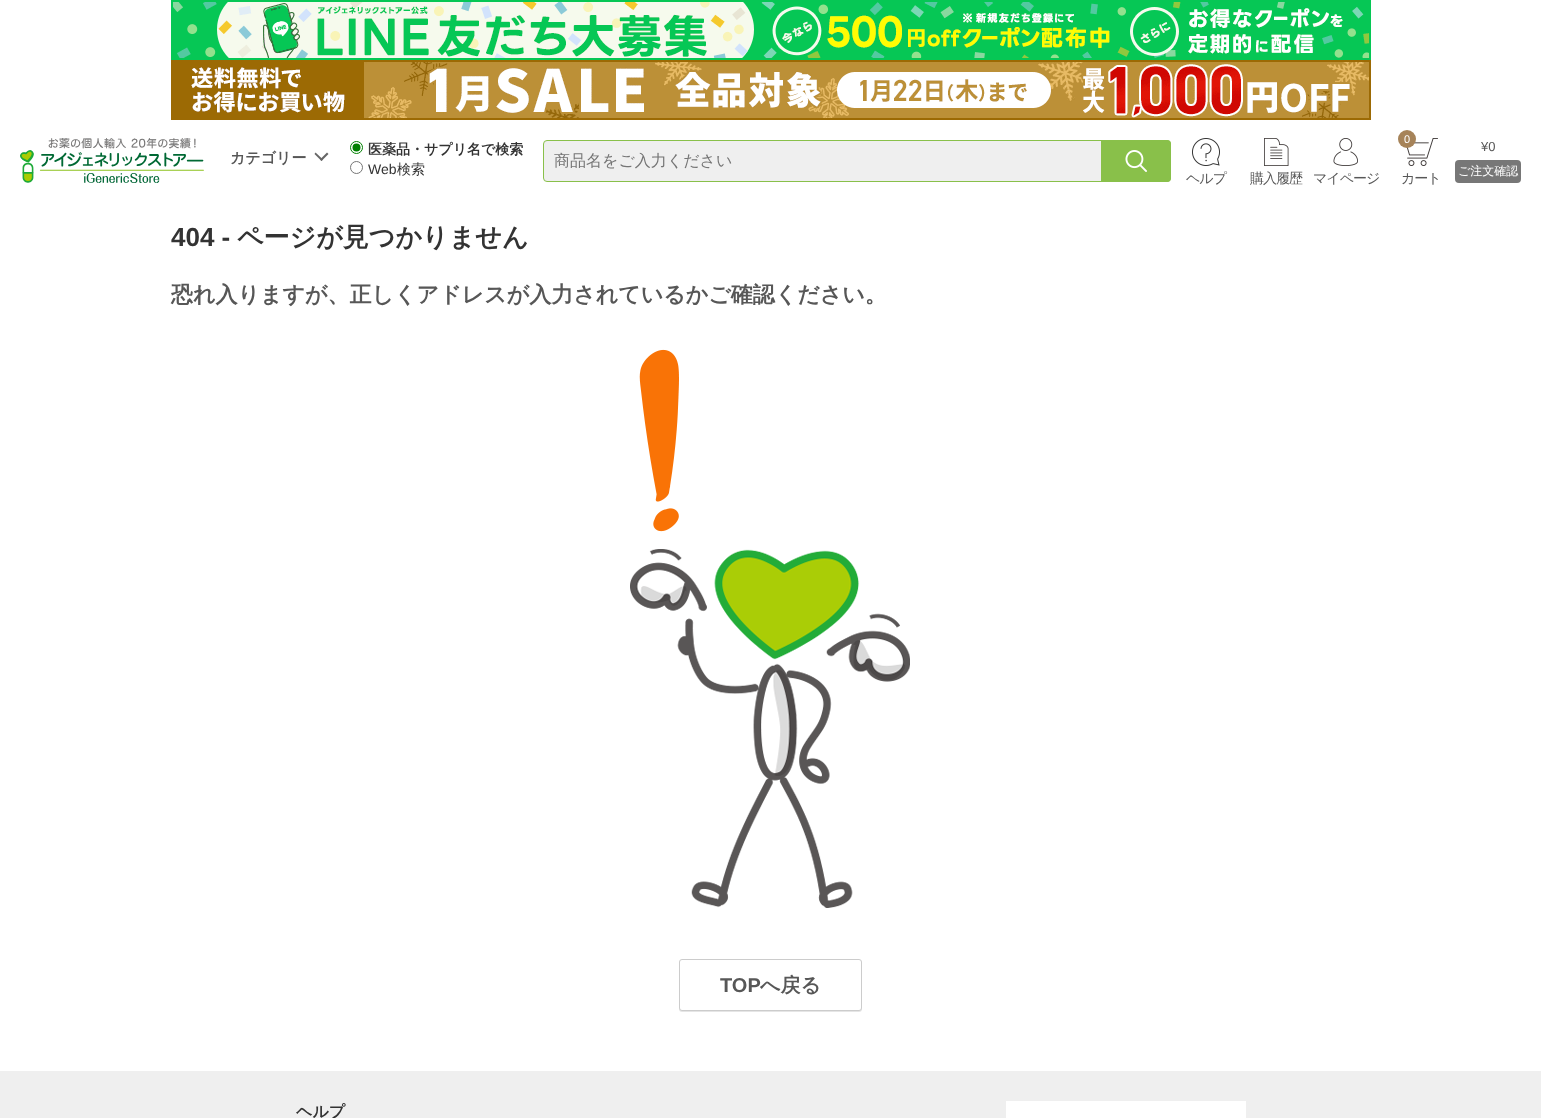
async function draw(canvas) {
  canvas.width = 1541;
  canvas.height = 1118;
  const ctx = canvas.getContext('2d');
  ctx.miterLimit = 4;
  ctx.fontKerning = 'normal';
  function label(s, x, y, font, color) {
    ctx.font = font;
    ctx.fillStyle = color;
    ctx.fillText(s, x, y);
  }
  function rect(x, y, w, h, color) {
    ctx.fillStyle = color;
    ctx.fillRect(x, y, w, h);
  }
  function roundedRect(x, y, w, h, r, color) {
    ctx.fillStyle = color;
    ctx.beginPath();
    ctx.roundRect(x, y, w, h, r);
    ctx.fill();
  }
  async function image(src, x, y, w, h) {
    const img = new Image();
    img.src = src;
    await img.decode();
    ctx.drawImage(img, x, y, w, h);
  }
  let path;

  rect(0, 0, 1541, 1118, '#fff');
  await image('assets/img1.png', 171, 0, 1200, 60);
  await image('assets/img2.png', 171, 60, 1200, 60);
  await image('assets/img3.png', 20, 138, 184, 45);
  label('カテゴリー', 230, 163, 'bold 15px WenQuanYi Zen Hei', '#575757');
  ctx.fillStyle = '#666';
  path = new Path2D('M327 152.5L328.5 154L321.5 161L320 159.5Z');
  ctx.fill(path);
  path = new Path2D('M315.5 152.5L323 159.5L321.5 161L314.5 154Z');
  ctx.fill(path);
  ctx.beginPath();
  ctx.arc(356.5, 147.5, 6, 0, 2 * Math.PI);
  ctx.strokeStyle = '#008000';
  ctx.stroke();
  ctx.fillStyle = '#008000';
  ctx.beginPath();
  ctx.arc(356.5, 147.5, 4, 0, 2 * Math.PI);
  ctx.fill();
  label('医薬品・サプリ名で検索', 368, 154, 'bold 14px WenQuanYi Zen Hei', '#333');
  ctx.beginPath();
  ctx.arc(356.5, 167.5, 6, 0, 2 * Math.PI);
  ctx.strokeStyle = '#767676';
  ctx.stroke();
  label('Web', 368, 174, '14px Liberation Sans', '#333');
  label('検索', 397, 174, '500 14px WenQuanYi Zen Hei', '#333');
  ctx.fillStyle = '#efefef';
  ctx.beginPath();
  ctx.roundRect(543.5, 140.5, 627, 41, 3.5);
  ctx.fill();
  ctx.strokeStyle = '#89c04a';
  ctx.stroke();
  label('商品名をご入力ください', 554, 166, '500 16px WenQuanYi Zen Hei', '#757575');
  ctx.fillStyle = '#89c04a';
  ctx.beginPath();
  ctx.roundRect(1101, 140, 70, 42, [0, 4, 4, 0]);
  ctx.fill();
  await image('assets/img4.png', 1125, 150, 22, 22);
  await image('assets/img5.png', 1192, 138, 28, 28);
  ctx.letterSpacing = '-1px';
  label('ヘルプ', 1186, 183, '500 14px WenQuanYi Zen Hei', '#575757');
  await image('assets/img6.png', 1264, 138, 25, 28);
  label('購入履歴', 1250, 183, '500 14px WenQuanYi Zen Hei', '#575757');
  await image('assets/img7.png', 1333, 138, 25, 28);
  label('マイページ', 1313, 183, '500 14px WenQuanYi Zen Hei', '#575757');
  await image('assets/img8.png', 1406, 138, 32, 28);
  ctx.fillStyle = '#a68359';
  ctx.beginPath();
  ctx.arc(1407, 139, 9, 0, 2 * Math.PI);
  ctx.fill();
  label('0', 1404, 143, '11px Liberation Sans', '#fff');
  label('カート', 1401, 183, '500 14px WenQuanYi Zen Hei', '#575757');
  ctx.letterSpacing = '0px';
  label('¥0', 1481, 151, '13px Liberation Sans', '#575757');
  roundedRect(1455, 160, 66, 23, 4, '#777');
  label('ご注文確認', 1458, 175, '500 12px WenQuanYi Zen Hei', '#fff');
  label('404 -', 171, 246, 'bold 26px Liberation Sans', '#333');
  label('ページが見つかりません', 237, 246, 'bold 26px WenQuanYi Zen Hei', '#333');
  label('恐れ入りますが、正しくアドレスが入力されているかご確認ください。', 171, 302, 'bold 22px WenQuanYi Zen Hei', '#575757');
  await image('assets/img9.png', 630, 349, 280, 559);
  ctx.fillStyle = '#0000001a';
  ctx.filter = 'blur(0.5px)';
  ctx.beginPath();
  ctx.roundRect(679, 960, 183, 52, 3);
  ctx.fill();
  ctx.filter = 'none';
  ctx.fillStyle = '#fff';
  ctx.beginPath();
  ctx.roundRect(679.5, 959.5, 182, 51, 2.5);
  ctx.fill();
  ctx.strokeStyle = '#ccc';
  ctx.stroke();
  label('TOP', 720, 992, 'bold 20px Liberation Sans', '#575757');
  label('へ戻る', 760, 992, 'bold 20px WenQuanYi Zen Hei', '#575757');
  rect(0, 1071, 1541, 47, '#efefef');
  label('ヘルプ', 296, 1117, 'bold 16px WenQuanYi Zen Hei', '#333');
  rect(1006, 1101, 240, 17, '#fff');
}

draw(document.querySelector('canvas'));
